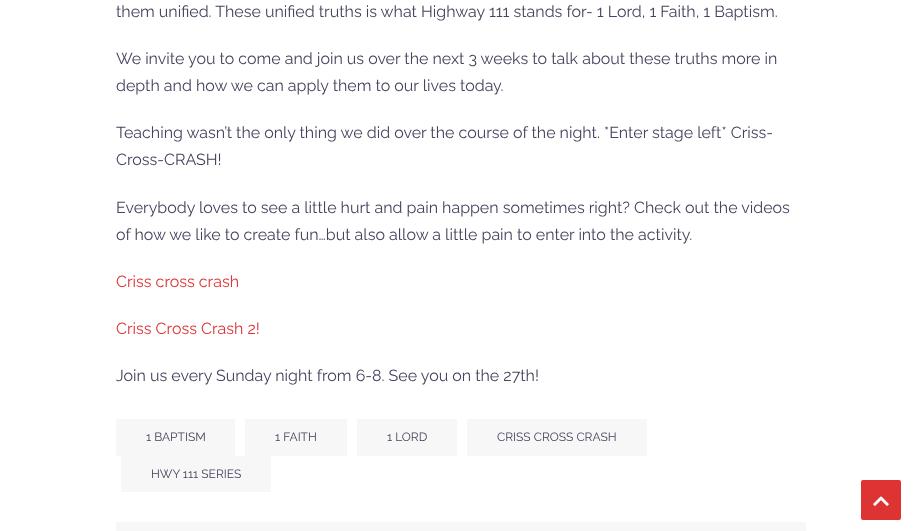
async function draw(canvas) {
  canvas.width = 921;
  canvas.height = 531;
  const ctx = canvas.getContext('2d');
  ctx.miterLimit = 4;
  ctx.fontKerning = 'normal';
  function label(s, x, y, font, color) {
    ctx.font = font;
    ctx.fillStyle = color;
    ctx.fillText(s, x, y);
  }
  function rect(x, y, w, h, color) {
    ctx.fillStyle = color;
    ctx.fillRect(x, y, w, h);
  }
  function roundedRect(x, y, w, h, r, color) {
    ctx.fillStyle = color;
    ctx.beginPath();
    ctx.roundRect(x, y, w, h, r);
    ctx.fill();
  }
  async function image(src, x, y, w, h) {
    const img = new Image();
    img.src = src;
    await img.decode();
    ctx.drawImage(img, x, y, w, h);
  }

  rect(0, 0, 921, 531, '#fff');
  label('them unified. These unified truths is what Highway 111 stands for- 1 Lord, 1 Faith, 1 Baptism.', 116, 17, '16px Raleway', '#47425d');
  label('We invite you to come and join us over the next 3 weeks to talk about these truths more in', 116, 64, '16px Raleway', '#47425d');
  label('depth and how we can apply them to our lives today.', 116, 91, '16px Raleway', '#47425d');
  label('Teaching wasn’t the only thing we did over the course of the night. *Enter stage left* Criss-', 116, 138, '16px Raleway', '#47425d');
  label('Cross-CRASH!', 116, 165, '16px Raleway', '#47425d');
  label('Everybody loves to see a little hurt and pain happen sometimes right? Check out the videos', 116, 213, '16px Raleway', '#47425d');
  label('of how we like to create fun…but also allow a little pain to enter into the activity.', 116, 240, '16px Raleway', '#47425d');
  label('Criss cross crash', 116, 287, '16px Raleway', '#d33');
  label('Criss Cross Crash 2!', 116, 334, '16px Raleway', '#d33');
  label('Join us every Sunday night from 6-8. See you on the 27th!', 116, 381, '16px Raleway', '#47425d');
  rect(116, 419, 119, 37, '#f7f7f7');
  label('1 BAPTISM', 146, 441, '12px Raleway', '#47425d');
  rect(245, 419, 102, 37, '#f7f7f7');
  label('1 FAITH', 275, 441, '12px Raleway', '#47425d');
  rect(357, 419, 100, 37, '#f7f7f7');
  label('1 LORD', 387, 441, '12px Raleway', '#47425d');
  rect(467, 419, 180, 37, '#f7f7f7');
  label('CRISS CROSS CRASH', 497, 441, '12px Raleway', '#47425d');
  rect(121, 456, 150, 36, '#f7f7f7');
  label('HWY 111 SERIES', 151, 478, '12px Raleway', '#47425d');
  rect(116, 522, 690, 9, '#f7f7f7');
  roundedRect(861, 480, 40, 40, 2, '#d33');
  await image('assets/img1.png', 873, 496, 16, 10);
}

draw(document.querySelector('canvas'));
